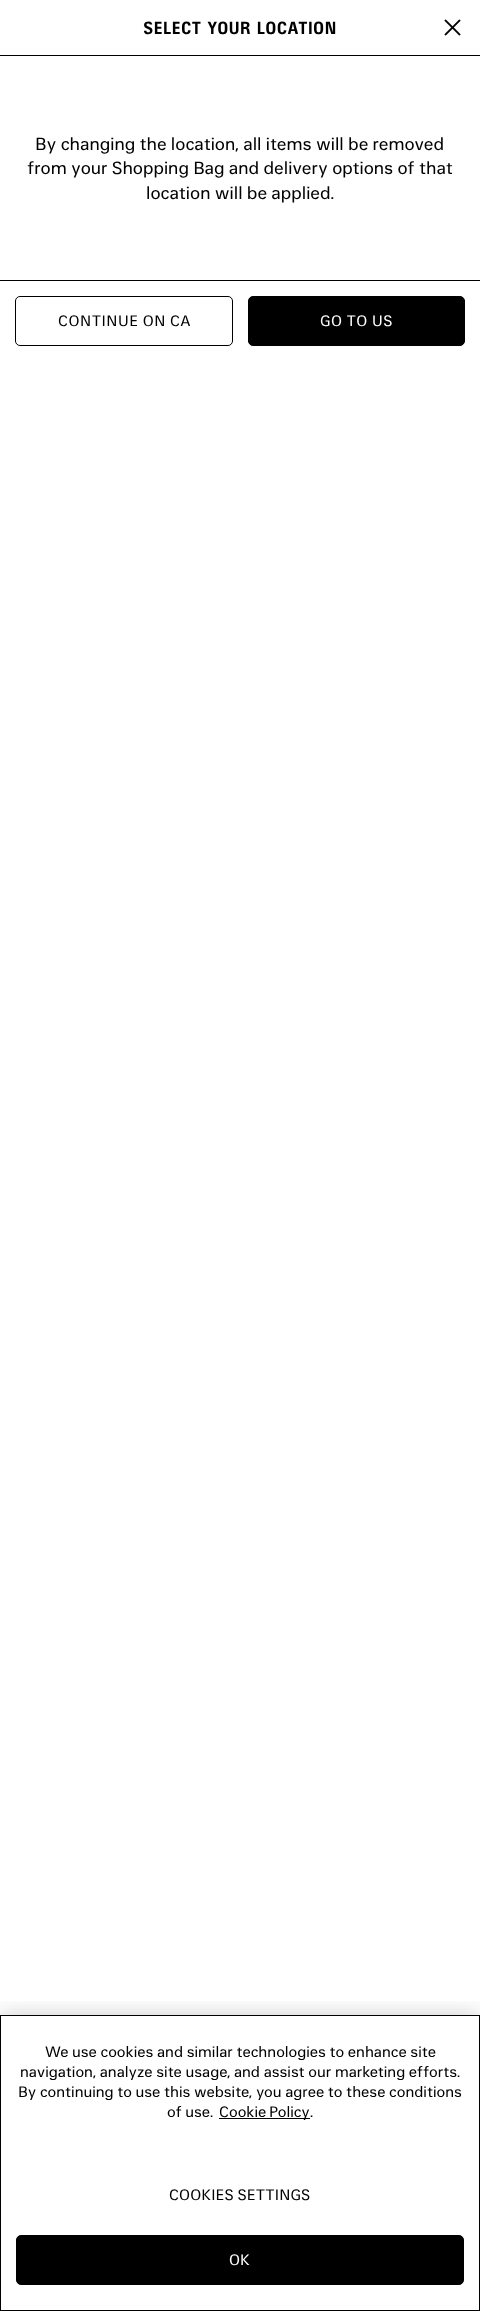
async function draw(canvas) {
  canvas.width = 480;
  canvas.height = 2311;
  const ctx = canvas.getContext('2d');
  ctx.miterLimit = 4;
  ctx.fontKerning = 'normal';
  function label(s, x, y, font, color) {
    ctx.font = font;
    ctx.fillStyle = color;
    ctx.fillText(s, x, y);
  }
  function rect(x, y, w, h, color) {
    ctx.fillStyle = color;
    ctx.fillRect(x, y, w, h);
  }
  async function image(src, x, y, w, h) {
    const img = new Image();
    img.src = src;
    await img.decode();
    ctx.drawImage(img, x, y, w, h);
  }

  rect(0, 0, 480, 2311, '#fff');
  rect(0, 55, 480, 1, '#000');
  ctx.letterSpacing = '0.5px';
  label('SELECT YOUR LOCATION', 143, 34, 'bold 17.5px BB', '#000');
  await image('assets/img1.png', 444, 19, 17, 17);
  ctx.letterSpacing = '0px';
  label('By changing the location, all items will be removed', 35, 150, '17.5px BB', '#000');
  label('from your Shopping Bag and delivery options of that', 27, 174, '17.5px BB', '#000');
  label('location will be applied.', 146, 199, '17.5px BB', '#000');
  rect(0, 280, 480, 1, '#000');
  ctx.beginPath();
  ctx.roundRect(15.5, 296.5, 217, 49, 4.5);
  ctx.strokeStyle = '#000';
  ctx.stroke();
  ctx.letterSpacing = '0.5px';
  label('CONTINUE ON CA', 58, 326, '15px BB', '#000');
  ctx.beginPath();
  ctx.roundRect(248.5, 296.5, 216, 49, 4.5);
  ctx.fill();
  ctx.stroke();
  label('GO TO US', 320, 326, '15px BB', '#fff');
  ctx.save();
  ctx.beginPath();
  ctx.rect(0, 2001, 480, 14);
  ctx.clip();
  ctx.fillStyle = '#00000033';
  ctx.filter = 'blur(11px)';
  ctx.beginPath();
  ctx.rect(0, 2015, 480, 296);
  ctx.fill();
  ctx.filter = 'none';
  ctx.restore();
  ctx.strokeRect(0.5, 2015.5, 479, 295);
  ctx.letterSpacing = '0px';
  label('We use cookies and similar technologies to enhance site', 45, 2057, '15px BB', '#000');
  label('navigation, analyze site usage, and assist our marketing efforts.', 20, 2077, '15px BB', '#000');
  label('By continuing to use this website, you agree to these conditions', 18, 2097, '15px BB', '#000');
  label('of use.', 167, 2117, '15px BB', '#000');
  rect(219, 2118, 91, 1, '#000');
  ctx.wordSpacing = '-1px';
  label('Cookie Policy', 219, 2117, '15px BB', '#000');
  ctx.wordSpacing = '0px';
  label('.', 310, 2117, '15px BB', '#000');
  ctx.letterSpacing = '0.1px';
  label('COOKIES SETTINGS', 169, 2200, '15px BB', '#000');
  ctx.beginPath();
  ctx.roundRect(16.5, 2235.5, 447, 49, 4.5);
  ctx.fill();
  ctx.stroke();
  label('OK', 229, 2265, '15px BB', '#fff');
}

draw(document.querySelector('canvas'));
